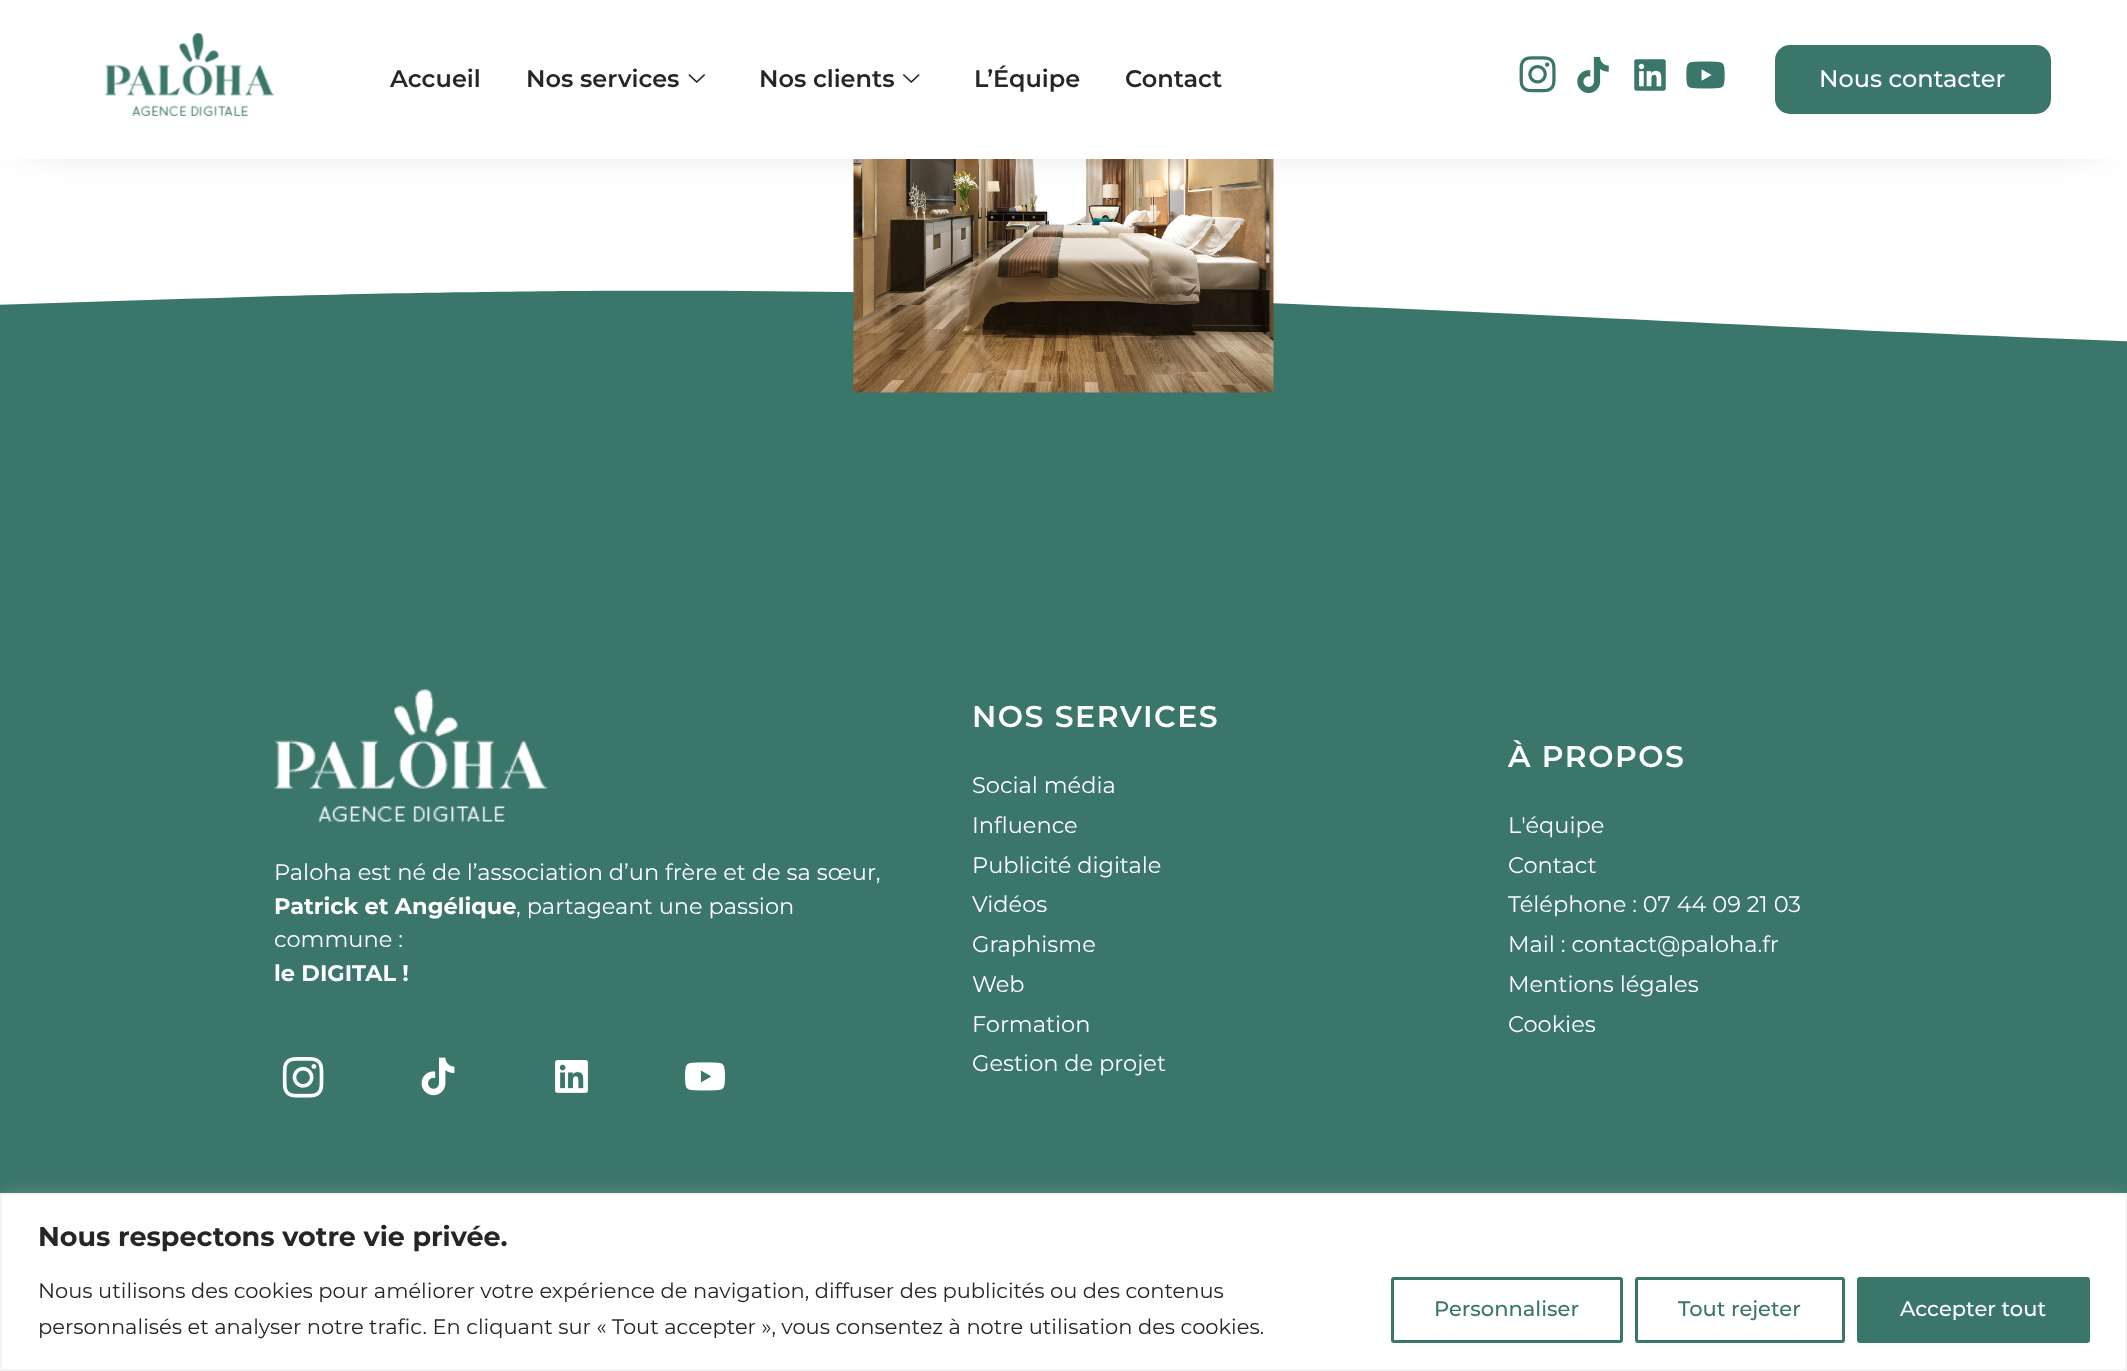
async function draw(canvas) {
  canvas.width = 2127;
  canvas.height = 1371;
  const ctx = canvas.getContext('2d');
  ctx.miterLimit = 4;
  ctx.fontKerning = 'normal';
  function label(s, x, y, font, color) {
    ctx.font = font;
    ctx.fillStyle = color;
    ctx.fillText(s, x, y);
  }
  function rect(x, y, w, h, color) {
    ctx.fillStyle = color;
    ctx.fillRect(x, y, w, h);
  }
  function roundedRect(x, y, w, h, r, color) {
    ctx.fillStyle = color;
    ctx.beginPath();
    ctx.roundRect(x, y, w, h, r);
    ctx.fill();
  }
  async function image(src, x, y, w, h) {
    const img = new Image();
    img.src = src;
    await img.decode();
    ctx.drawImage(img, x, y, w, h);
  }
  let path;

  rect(0, 0, 2127, 1371, '#fff');
  rect(0, 290, 2127, 903, '#3a766a');
  ctx.save();
  ctx.beginPath();
  ctx.rect(0, 287, 2127, 75);
  ctx.clip();
  ctx.fillStyle = '#fff';
  path = new Path2D('M565 291C709 290 894 292 1047 295C1198 299 1499 313 1688 322C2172 346 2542 356 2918 359C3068 361 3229 362 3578 358C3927 353 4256 338 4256 338V286H-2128V309C-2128 309-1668 334-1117 332C-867 332-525 327-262 315C-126 309 72 302 247 297C421 292 499 292 565 291Z');
  ctx.fill(path);
  ctx.restore();
  await image('assets/img8.png', 853, 159, 421, 234);
  ctx.fillStyle = '#00000080';
  ctx.filter = 'blur(24px)';
  ctx.beginPath();
  ctx.rect(30, 30, 2067, 99);
  ctx.fill();
  ctx.filter = 'none';
  rect(0, 0, 2127, 159, '#fff');
  await image('assets/img1.png', 104, 33, 171, 83);
  label('Accueil', 390, 87, '600 24px Montserrat', '#262626');
  label('Nos services', 526, 87, '600 24px Montserrat', '#262626');
  await image('assets/img2.png', 688, 74, 17, 9);
  label('Nos clients', 759, 87, '600 24px Montserrat', '#262626');
  await image('assets/img3.png', 903, 74, 17, 9);
  label('L’Équipe', 974, 87, '600 24px Montserrat', '#262626');
  label('Contact', 1125, 87, '600 24px Montserrat', '#262626');
  await image('assets/img4.png', 1519, 56, 37, 37);
  await image('assets/img5.png', 1577, 57, 32, 36);
  await image('assets/img6.png', 1634, 59, 32, 32);
  await image('assets/img7.png', 1686, 61, 39, 28);
  roundedRect(1775, 45, 276, 69, 15, '#3a766a');
  label('Nous contacter', 1819, 87, '500 24px Montserrat', '#fff');
  await image('assets/img9.png', 274, 689, 274, 133);
  label('Paloha est né de l’association d’un frère et de sa sœur,', 274, 880, '22.5px Montserrat', '#fff');
  label('Patrick et Angélique', 274, 914, 'bold 22.5px Montserrat', '#fff');
  label(', partageant une passion', 516, 914, '22.5px Montserrat', '#fff');
  label('commune :', 274, 947, '22.5px Montserrat', '#fff');
  label('le DIGITAL !', 274, 981, 'bold 22.5px Montserrat', '#fff');
  await image('assets/img10.png', 282, 1057, 42, 41);
  await image('assets/img11.png', 421, 1057, 34, 39);
  await image('assets/img12.png', 555, 1060, 33, 33);
  await image('assets/img13.png', 685, 1062, 40, 29);
  ctx.letterSpacing = '1.5px';
  label('NOS SERVICES', 972, 727, '600 30px Montserrat', '#fff');
  ctx.letterSpacing = '0px';
  label('Social média', 972, 793, '22.5px Montserrat', '#fff');
  label('Influence', 972, 833, '22.5px Montserrat', '#fff');
  label('Publicité digitale', 972, 873, '22.5px Montserrat', '#fff');
  label('Vidéos', 972, 912, '22.5px Montserrat', '#fff');
  label('Graphisme', 972, 952, '22.5px Montserrat', '#fff');
  label('Web', 972, 992, '22.5px Montserrat', '#fff');
  label('Formation', 972, 1032, '22.5px Montserrat', '#fff');
  label('Gestion de projet', 972, 1071, '22.5px Montserrat', '#fff');
  ctx.letterSpacing = '1.5px';
  label('À PROPOS', 1508, 767, '600 30px Montserrat', '#fff');
  ctx.letterSpacing = '0px';
  label('L\'équipe', 1508, 833, '22.5px Montserrat', '#fff');
  label('Contact', 1508, 873, '22.5px Montserrat', '#fff');
  label('Téléphone : 07 44 09 21 03', 1508, 912, '22.5px Montserrat', '#fff');
  label('Mail : contact@paloha.fr', 1508, 952, '22.5px Montserrat', '#fff');
  label('Mentions légales', 1508, 992, '22.5px Montserrat', '#fff');
  label('Cookies', 1508, 1032, '22.5px Montserrat', '#fff');
  ctx.fillStyle = '#acabab4d';
  ctx.filter = 'blur(7.5px)';
  ctx.beginPath();
  ctx.rect(0, 1191, 2127, 179);
  ctx.fill();
  ctx.filter = 'none';
  ctx.fillStyle = '#fff';
  ctx.beginPath();
  ctx.rect(1, 1194, 2125, 176);
  ctx.fill();
  ctx.strokeStyle = '#f4f4f4';
  ctx.lineWidth = 2;
  ctx.stroke();
  label('Nous respectons votre vie privée.', 38, 1246, 'bold 27px Montserrat', '#262626');
  label('Nous utilisons des cookies pour améliorer votre expérience de navigation, diffuser des publicités ou des contenus', 38, 1298, '21px Montserrat', '#262626');
  label('personnalisés et analyser notre trafic. En cliquant sur « Tout accepter », vous consentez à notre utilisation des cookies.', 38, 1334, '21px Montserrat', '#262626');
  ctx.beginPath();
  ctx.roundRect(1392.5, 1278.5, 229, 63, 1.5);
  ctx.strokeStyle = '#3a766a';
  ctx.lineWidth = 3;
  ctx.stroke();
  label('Personnaliser', 1434, 1316, '500 21px Montserrat', '#3a766a');
  ctx.beginPath();
  ctx.roundRect(1636.5, 1278.5, 207, 63, 1.5);
  ctx.stroke();
  label('Tout rejeter', 1678, 1316, '500 21px Montserrat', '#3a766a');
  ctx.beginPath();
  ctx.roundRect(1858.5, 1278.5, 230, 63, 1.5);
  ctx.fill();
  ctx.stroke();
  label('Accepter tout', 1900, 1316, '500 21px Montserrat', '#fff');
}

draw(document.querySelector('canvas'));
